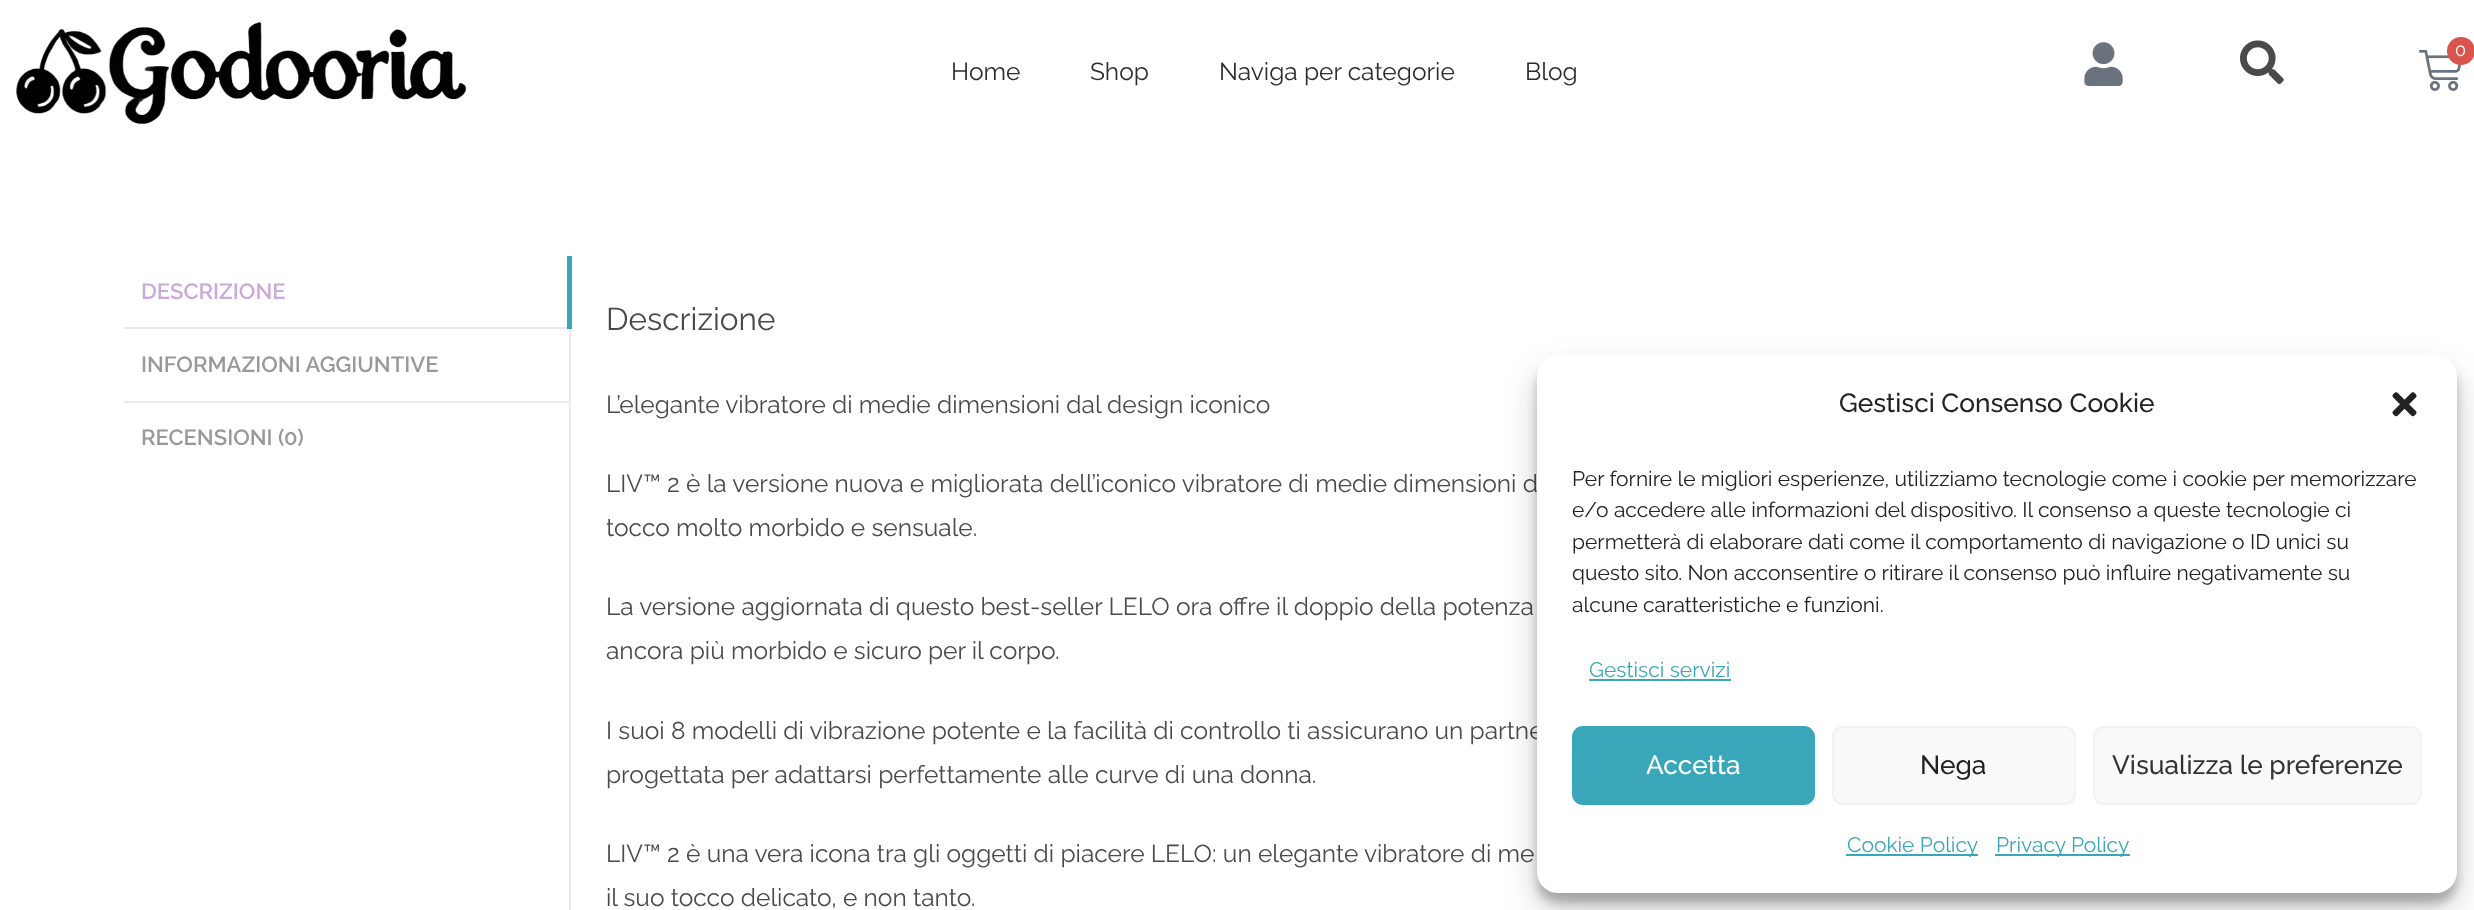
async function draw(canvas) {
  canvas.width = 2474;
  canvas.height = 910;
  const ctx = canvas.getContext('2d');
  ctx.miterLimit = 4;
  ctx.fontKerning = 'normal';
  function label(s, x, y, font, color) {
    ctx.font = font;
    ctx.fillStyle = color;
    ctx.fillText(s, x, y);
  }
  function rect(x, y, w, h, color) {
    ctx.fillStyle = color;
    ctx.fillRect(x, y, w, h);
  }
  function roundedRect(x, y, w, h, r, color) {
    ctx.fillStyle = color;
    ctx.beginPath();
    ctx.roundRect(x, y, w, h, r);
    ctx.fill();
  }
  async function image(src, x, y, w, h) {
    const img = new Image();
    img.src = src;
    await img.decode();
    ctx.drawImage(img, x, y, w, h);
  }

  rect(0, 0, 2474, 910, '#fff');
  await image('assets/img1.png', 16, 22, 451, 102);
  await image('assets/img2.png', 2084, 42, 39, 44);
  await image('assets/img3.png', 2240, 40, 44, 45);
  await image('assets/img4.png', 2419, 49, 42, 42);
  ctx.fillStyle = '#d9534f';
  ctx.beginPath();
  ctx.arc(2461, 51, 14, 0, 2 * Math.PI);
  ctx.fill();
  label('0', 2455, 56, '18px Raleway', '#fff');
  label('Home', 951, 80, '24.5px Raleway', '#2c2c2c');
  label('Shop', 1090, 80, '24.5px Raleway', '#2c2c2c');
  label('Naviga per categorie', 1219, 80, '24.5px Raleway', '#2c2c2c');
  label('Blog', 1525, 80, '24.5px Raleway', '#2c2c2c');
  label('DESCRIZIONE', 141, 299, '600 22px Raleway', '#cca9dd');
  rect(124, 327, 445, 2, '#eaeaea');
  rect(567, 256, 5, 73, '#3aa6b9');
  label('INFORMAZIONI AGGIUNTIVE', 141, 372, '600 22px Raleway', '#999');
  rect(124, 401, 445, 2, '#eaeaea');
  label('RECENSIONI (0)', 141, 445, '600 22px Raleway', '#999');
  rect(569, 329, 2, 581, '#eaeaea');
  label('Descrizione', 606, 330, '31.5px Raleway', '#4a4a4a');
  label('L’elegante vibratore di medie dimensioni dal design iconico', 606, 413, '24.5px Raleway', '#4a4a4a');
  label('LIV™ 2 è la versione nuova e migliorata dell’iconico vibratore di medie dimensioni d', 606, 492, '24.5px Raleway', '#4a4a4a');
  label('tocco molto morbido e sensuale.', 606, 536, '24.5px Raleway', '#4a4a4a');
  label('La versione aggiornata di questo best-seller LELO ora offre il doppio della potenza', 606, 615, '24.5px Raleway', '#4a4a4a');
  label('ancora più morbido e sicuro per il corpo.', 606, 659, '24.5px Raleway', '#4a4a4a');
  label('I suoi 8 modelli di vibrazione potente e la facilità di controllo ti assicurano un partne', 606, 739, '24.5px Raleway', '#4a4a4a');
  label('progettata per adattarsi perfettamente alle curve di una donna.', 606, 783, '24.5px Raleway', '#4a4a4a');
  label('LIV™ 2 è una vera icona tra gli oggetti di piacere LELO: un elegante vibratore di me', 606, 862, '24.5px Raleway', '#4a4a4a');
  label('il suo tocco delicato, e non tanto.', 606, 906, '24.5px Raleway', '#4a4a4a');
  ctx.fillStyle = '#0000003b';
  ctx.filter = 'blur(5px)';
  ctx.beginPath();
  ctx.roundRect(1537, 366, 920, 537, 21);
  ctx.fill();
  ctx.filter = 'none';
  ctx.fillStyle = '#00000030';
  ctx.filter = 'blur(17.5px)';
  ctx.beginPath();
  ctx.roundRect(1537, 373, 920, 537, 21);
  ctx.fill();
  ctx.filter = 'none';
  roundedRect(1537, 355, 920, 538, 21, '#fff');
  label('Gestisci Consenso Cookie', 1839, 412, '500 26.25px Raleway', '#222');
  await image('assets/img5.png', 2392, 392, 25, 25);
  label('Per fornire le migliori esperienze, utilizziamo tecnologie come i cookie per memorizzare', 1572, 486, '21px Raleway', '#222');
  label('e/o accedere alle informazioni del dispositivo. Il consenso a queste tecnologie ci', 1572, 517, '21px Raleway', '#222');
  label('permetterà di elaborare dati come il comportamento di navigazione o ID unici su', 1572, 549, '21px Raleway', '#222');
  label('questo sito. Non acconsentire o ritirare il consenso può influire negativamente su', 1572, 580, '21px Raleway', '#222');
  label('alcune caratteristiche e funzioni.', 1572, 612, '21px Raleway', '#222');
  label('Gestisci servizi', 1589, 677, '21px Raleway', '#3aa6b9');
  rect(1589, 679, 142, 2, '#3aa6b9');
  ctx.beginPath();
  ctx.roundRect(1573, 727, 241, 77, 10);
  ctx.fill();
  ctx.strokeStyle = '#3aa6b9';
  ctx.lineWidth = 2;
  ctx.stroke();
  label('Accetta', 1646, 774, '500 26.25px Raleway', '#fff');
  ctx.fillStyle = '#f9f9f9';
  ctx.beginPath();
  ctx.roundRect(1833, 727, 242, 77, 10);
  ctx.fill();
  ctx.strokeStyle = '#f2f2f2';
  ctx.stroke();
  label('Nega', 1920, 774, '500 26.25px Raleway', '#222');
  ctx.fillStyle = '#f9f9f9';
  ctx.beginPath();
  ctx.roundRect(2094, 727, 327, 77, 10);
  ctx.fill();
  ctx.stroke();
  label('Visualizza le preferenze', 2112, 774, '500 26.25px Raleway', '#333');
  rect(1846, 854, 132, 2, '#3aa6b9');
  label('Cookie Policy', 1847, 852, '21px Raleway', '#3aa6b9');
  rect(1995, 854, 135, 2, '#3aa6b9');
  label('Privacy Policy', 1996, 852, '21px Raleway', '#3aa6b9');
}

draw(document.querySelector('canvas'));
